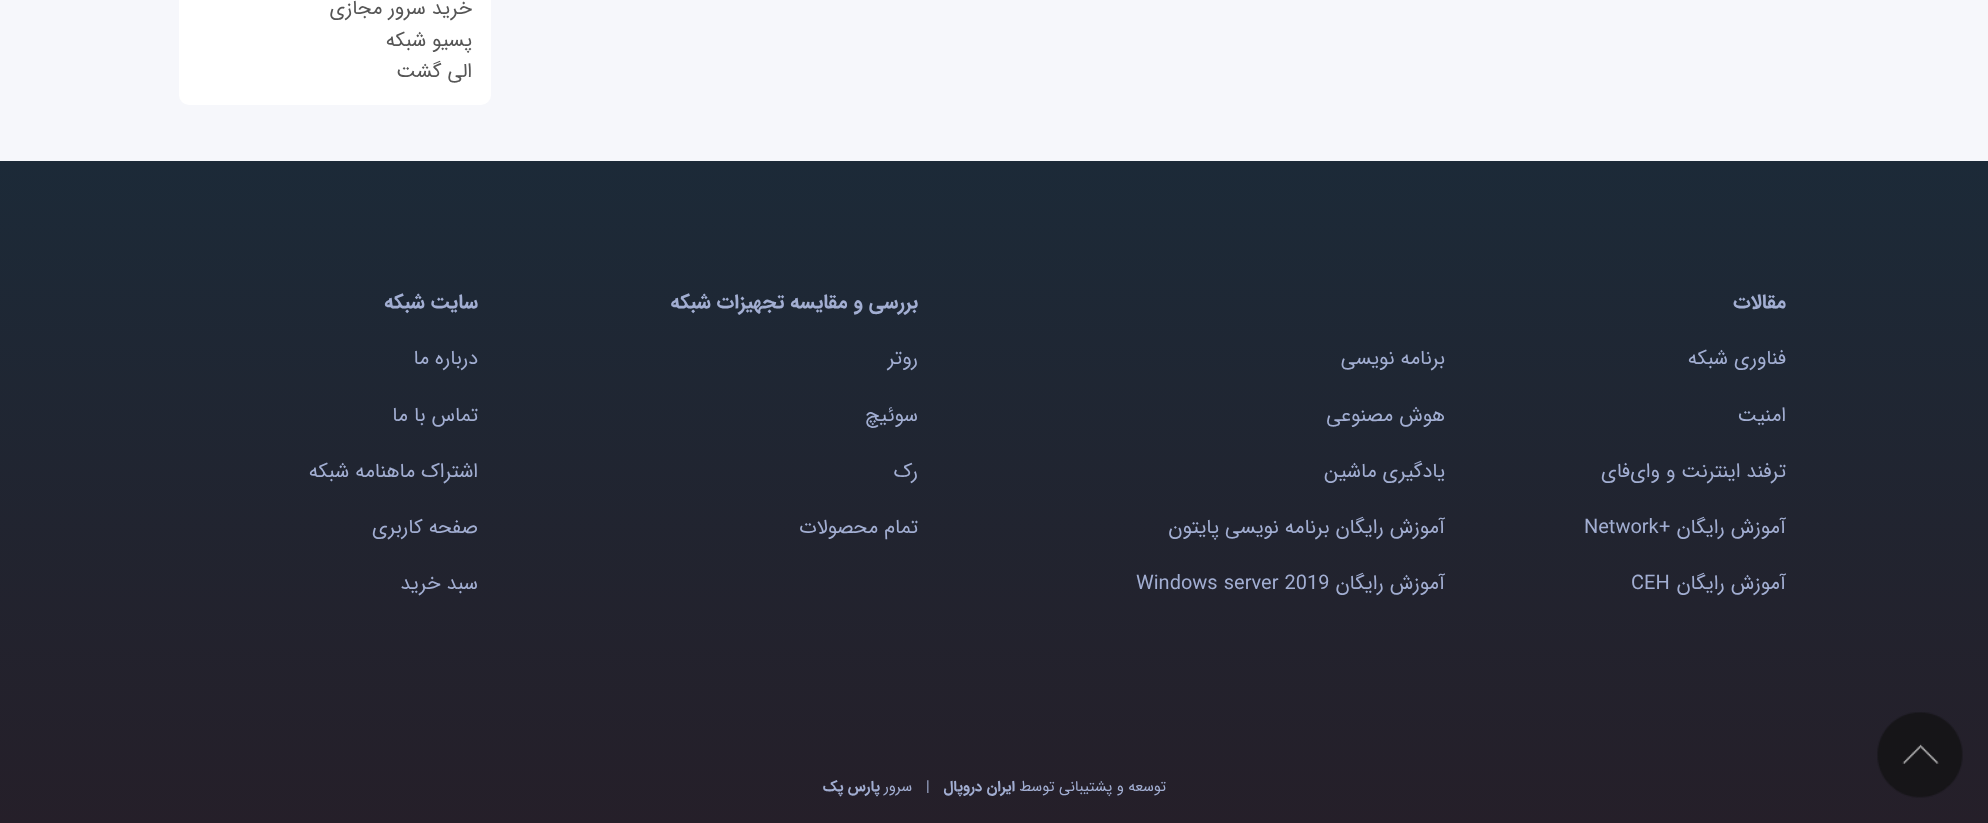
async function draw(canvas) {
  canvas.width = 1988;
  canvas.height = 823;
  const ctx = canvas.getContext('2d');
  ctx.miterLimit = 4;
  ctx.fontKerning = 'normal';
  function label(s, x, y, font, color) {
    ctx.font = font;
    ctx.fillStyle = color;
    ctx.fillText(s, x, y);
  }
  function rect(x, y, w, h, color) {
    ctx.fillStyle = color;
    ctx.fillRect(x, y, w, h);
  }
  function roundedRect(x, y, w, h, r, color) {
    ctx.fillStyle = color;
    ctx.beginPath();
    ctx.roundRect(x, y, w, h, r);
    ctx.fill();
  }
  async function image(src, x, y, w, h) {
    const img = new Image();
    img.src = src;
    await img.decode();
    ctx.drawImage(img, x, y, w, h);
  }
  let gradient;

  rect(0, 0, 1988, 823, '#f6f7fb');
  gradient = ctx.createLinearGradient(994, 161, 994, 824);
  gradient.addColorStop(0, '#1c2a38');
  gradient.addColorStop(1, '#251f29');
  ctx.fillStyle = gradient;
  ctx.fillRect(0, 161, 1988, 662);
  await image('assets/img1.png', 1877, 712, 86, 86);
  roundedRect(179, -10, 312, 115, 10, '#fff');
  ctx.direction = 'rtl';
  label('خرید سرور مجازی', 472, 14, '20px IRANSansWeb', '#555');
  label('پسیو شبکه', 472, 46, '20px IRANSansWeb', '#555');
  label('الی گشت', 472, 77, '20px IRANSansWeb', '#555');
  label('مقالات', 1786, 308, 'bold 20px IRANSansWeb', '#a2aed2');
  label('فناوری شبکه', 1786, 364, '20px IRANSansWeb', '#a2aed2');
  label('برنامه نویسی', 1445, 364, '20px IRANSansWeb', '#a2aed2');
  label('امنیت', 1786, 421, '20px IRANSansWeb', '#a2aed2');
  label('هوش مصنوعی', 1445, 421, '20px IRANSansWeb', '#a2aed2');
  label('ترفند اینترنت و وای‌فای', 1786, 477, '20px IRANSansWeb', '#a2aed2');
  label('یادگیری ماشین', 1445, 477, '20px IRANSansWeb', '#a2aed2');
  label('آموزش رایگان +', 1786, 533, '20px IRANSansWeb', '#a2aed2');
  ctx.direction = 'ltr';
  label('Network', 1584, 533, '20px IRANSansWeb', '#a2aed2');
  ctx.direction = 'rtl';
  label('آموزش رایگان برنامه نویسی پایتون', 1445, 533, '20px IRANSansWeb', '#a2aed2');
  label('آموزش رایگان', 1786, 589, '20px IRANSansWeb', '#a2aed2');
  ctx.direction = 'ltr';
  label('CEH', 1631, 589, '20px IRANSansWeb', '#a2aed2');
  ctx.direction = 'rtl';
  label('آموزش رایگان', 1445, 589, '20px IRANSansWeb', '#a2aed2');
  ctx.direction = 'ltr';
  label('Windows server 2019', 1136, 589, '20px IRANSansWeb', '#a2aed2');
  ctx.direction = 'rtl';
  label('بررسی و مقایسه تجهیزات شبکه', 918, 308, 'bold 20px IRANSansWeb', '#a2aed2');
  label('روتر', 918, 364, '20px IRANSansWeb', '#a2aed2');
  label('سوئیچ', 918, 421, '20px IRANSansWeb', '#a2aed2');
  label('رک', 918, 477, '20px IRANSansWeb', '#a2aed2');
  label('تمام محصولات', 918, 533, '20px IRANSansWeb', '#a2aed2');
  label('سایت شبکه', 478, 308, 'bold 20px IRANSansWeb', '#a2aed2');
  label('درباره ما', 478, 364, '20px IRANSansWeb', '#a2aed2');
  label('تماس با ما', 478, 421, '20px IRANSansWeb', '#a2aed2');
  label('اشتراک ماهنامه شبکه', 478, 477, '20px IRANSansWeb', '#a2aed2');
  label('صفحه کاربری', 478, 533, '20px IRANSansWeb', '#a2aed2');
  label('سبد خرید', 478, 589, '20px IRANSansWeb', '#a2aed2');
  label('توسعه و پشتیبانی توسط', 1166, 791, '15px IRANSansWeb', '#a2aed2');
  label('ایران دروپال', 1015, 791, 'bold 15px IRANSansWeb', '#a2aed2');
  ctx.direction = 'ltr';
  label('|', 926, 791, '15px IRANSansWeb', '#a2aed2');
  ctx.direction = 'rtl';
  label('سرور', 912, 791, '15px IRANSansWeb', '#a2aed2');
  label('پارس پک', 880, 791, 'bold 15px IRANSansWeb', '#a2aed2');
}

draw(document.querySelector('canvas'));
